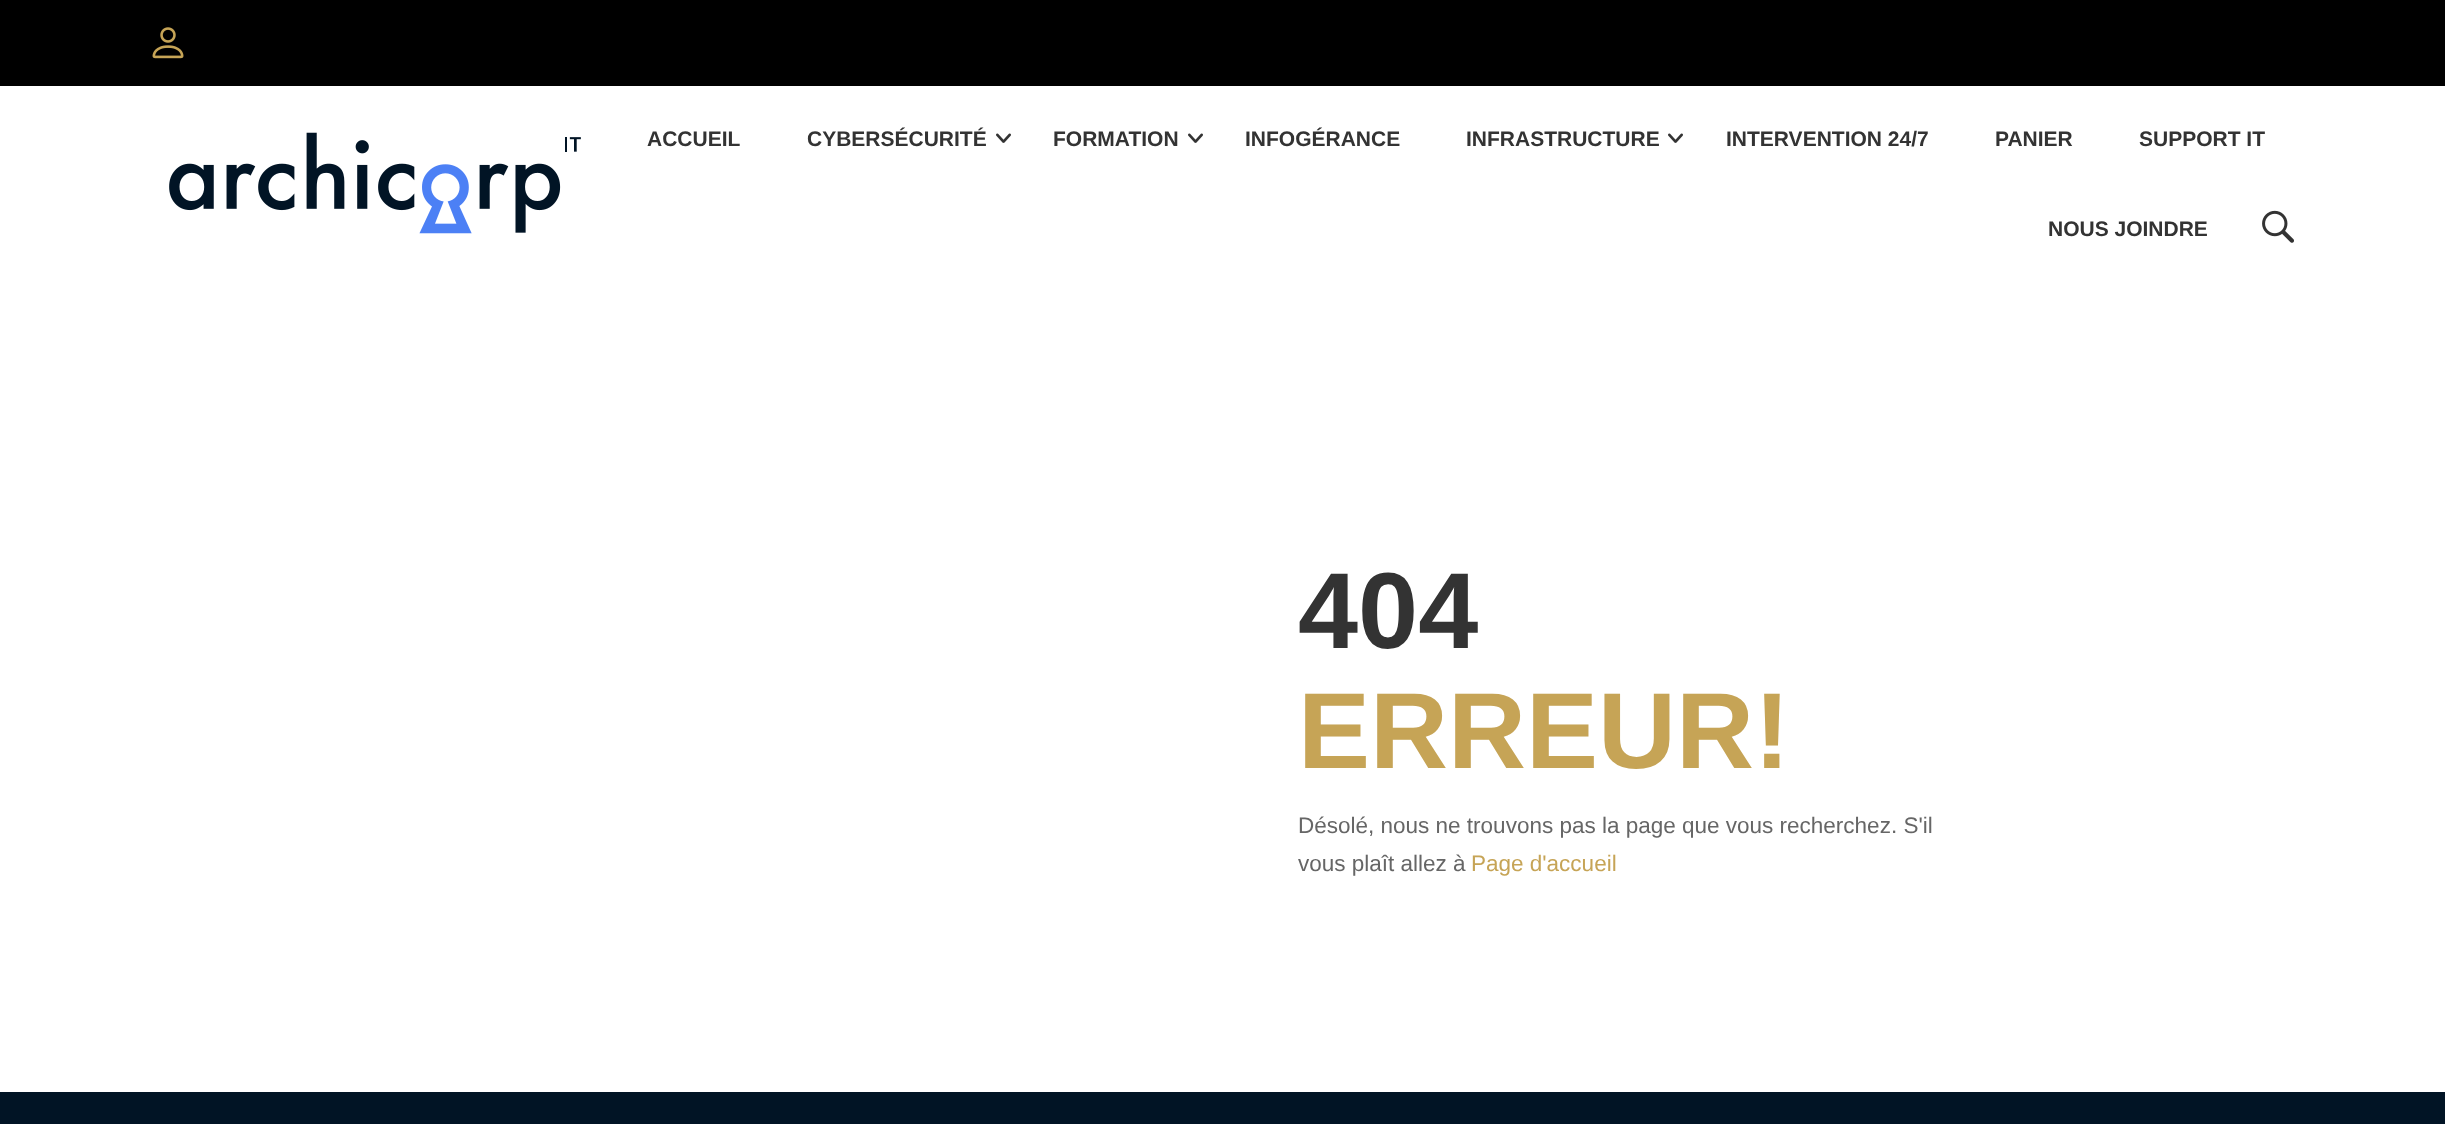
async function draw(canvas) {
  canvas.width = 2445;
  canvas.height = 1124;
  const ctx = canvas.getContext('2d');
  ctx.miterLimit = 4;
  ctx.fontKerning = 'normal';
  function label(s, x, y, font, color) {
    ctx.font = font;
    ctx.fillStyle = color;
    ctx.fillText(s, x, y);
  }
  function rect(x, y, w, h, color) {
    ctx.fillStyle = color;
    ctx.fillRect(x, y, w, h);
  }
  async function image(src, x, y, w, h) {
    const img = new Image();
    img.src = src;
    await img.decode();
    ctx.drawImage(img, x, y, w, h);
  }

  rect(0, 0, 2445, 1124, '#fff');
  rect(0, 0, 2445, 86, '#000');
  await image('assets/img1.png', 152, 27, 32, 32);
  await image('assets/img2.png', 169, 132, 412, 102);
  label('ACCUEIL', 647, 146, 'bold 21px Liberation Sans', '#333');
  label('CYBERSÉCURITÉ', 807, 146, 'bold 21px Liberation Sans', '#333');
  await image('assets/img3.png', 996, 133, 15, 10);
  label('FORMATION', 1053, 146, 'bold 21px Liberation Sans', '#333');
  await image('assets/img3.png', 1188, 133, 15, 10);
  label('INFOGÉRANCE', 1245, 146, 'bold 21px Liberation Sans', '#333');
  label('INFRASTRUCTURE', 1466, 146, 'bold 21px Liberation Sans', '#333');
  await image('assets/img3.png', 1668, 133, 15, 10);
  label('INTERVENTION 24/7', 1726, 146, 'bold 21px Liberation Sans', '#333');
  label('PANIER', 1995, 146, 'bold 21px Liberation Sans', '#333');
  label('SUPPORT IT', 2139, 146, 'bold 21px Liberation Sans', '#333');
  label('NOUS JOINDRE', 2048, 236, 'bold 21px Liberation Sans', '#333');
  await image('assets/img4.png', 2262, 210, 32, 33);
  label('404', 1298, 648, 'bold 108px Liberation Sans', '#333');
  label('ERREUR!', 1298, 768, 'bold 108px Liberation Sans', '#c6a456');
  label('Désolé, nous ne trouvons pas la page que vous recherchez. S\'il', 1298, 833, '22.5px Liberation Sans', '#666');
  label('vous plaît allez à', 1298, 871, '22.5px Liberation Sans', '#666');
  label('Page d\'accueil', 1471, 871, '22.5px Liberation Sans', '#c6a456');
  rect(0, 1092, 2445, 32, '#011425');
}

draw(document.querySelector('canvas'));
